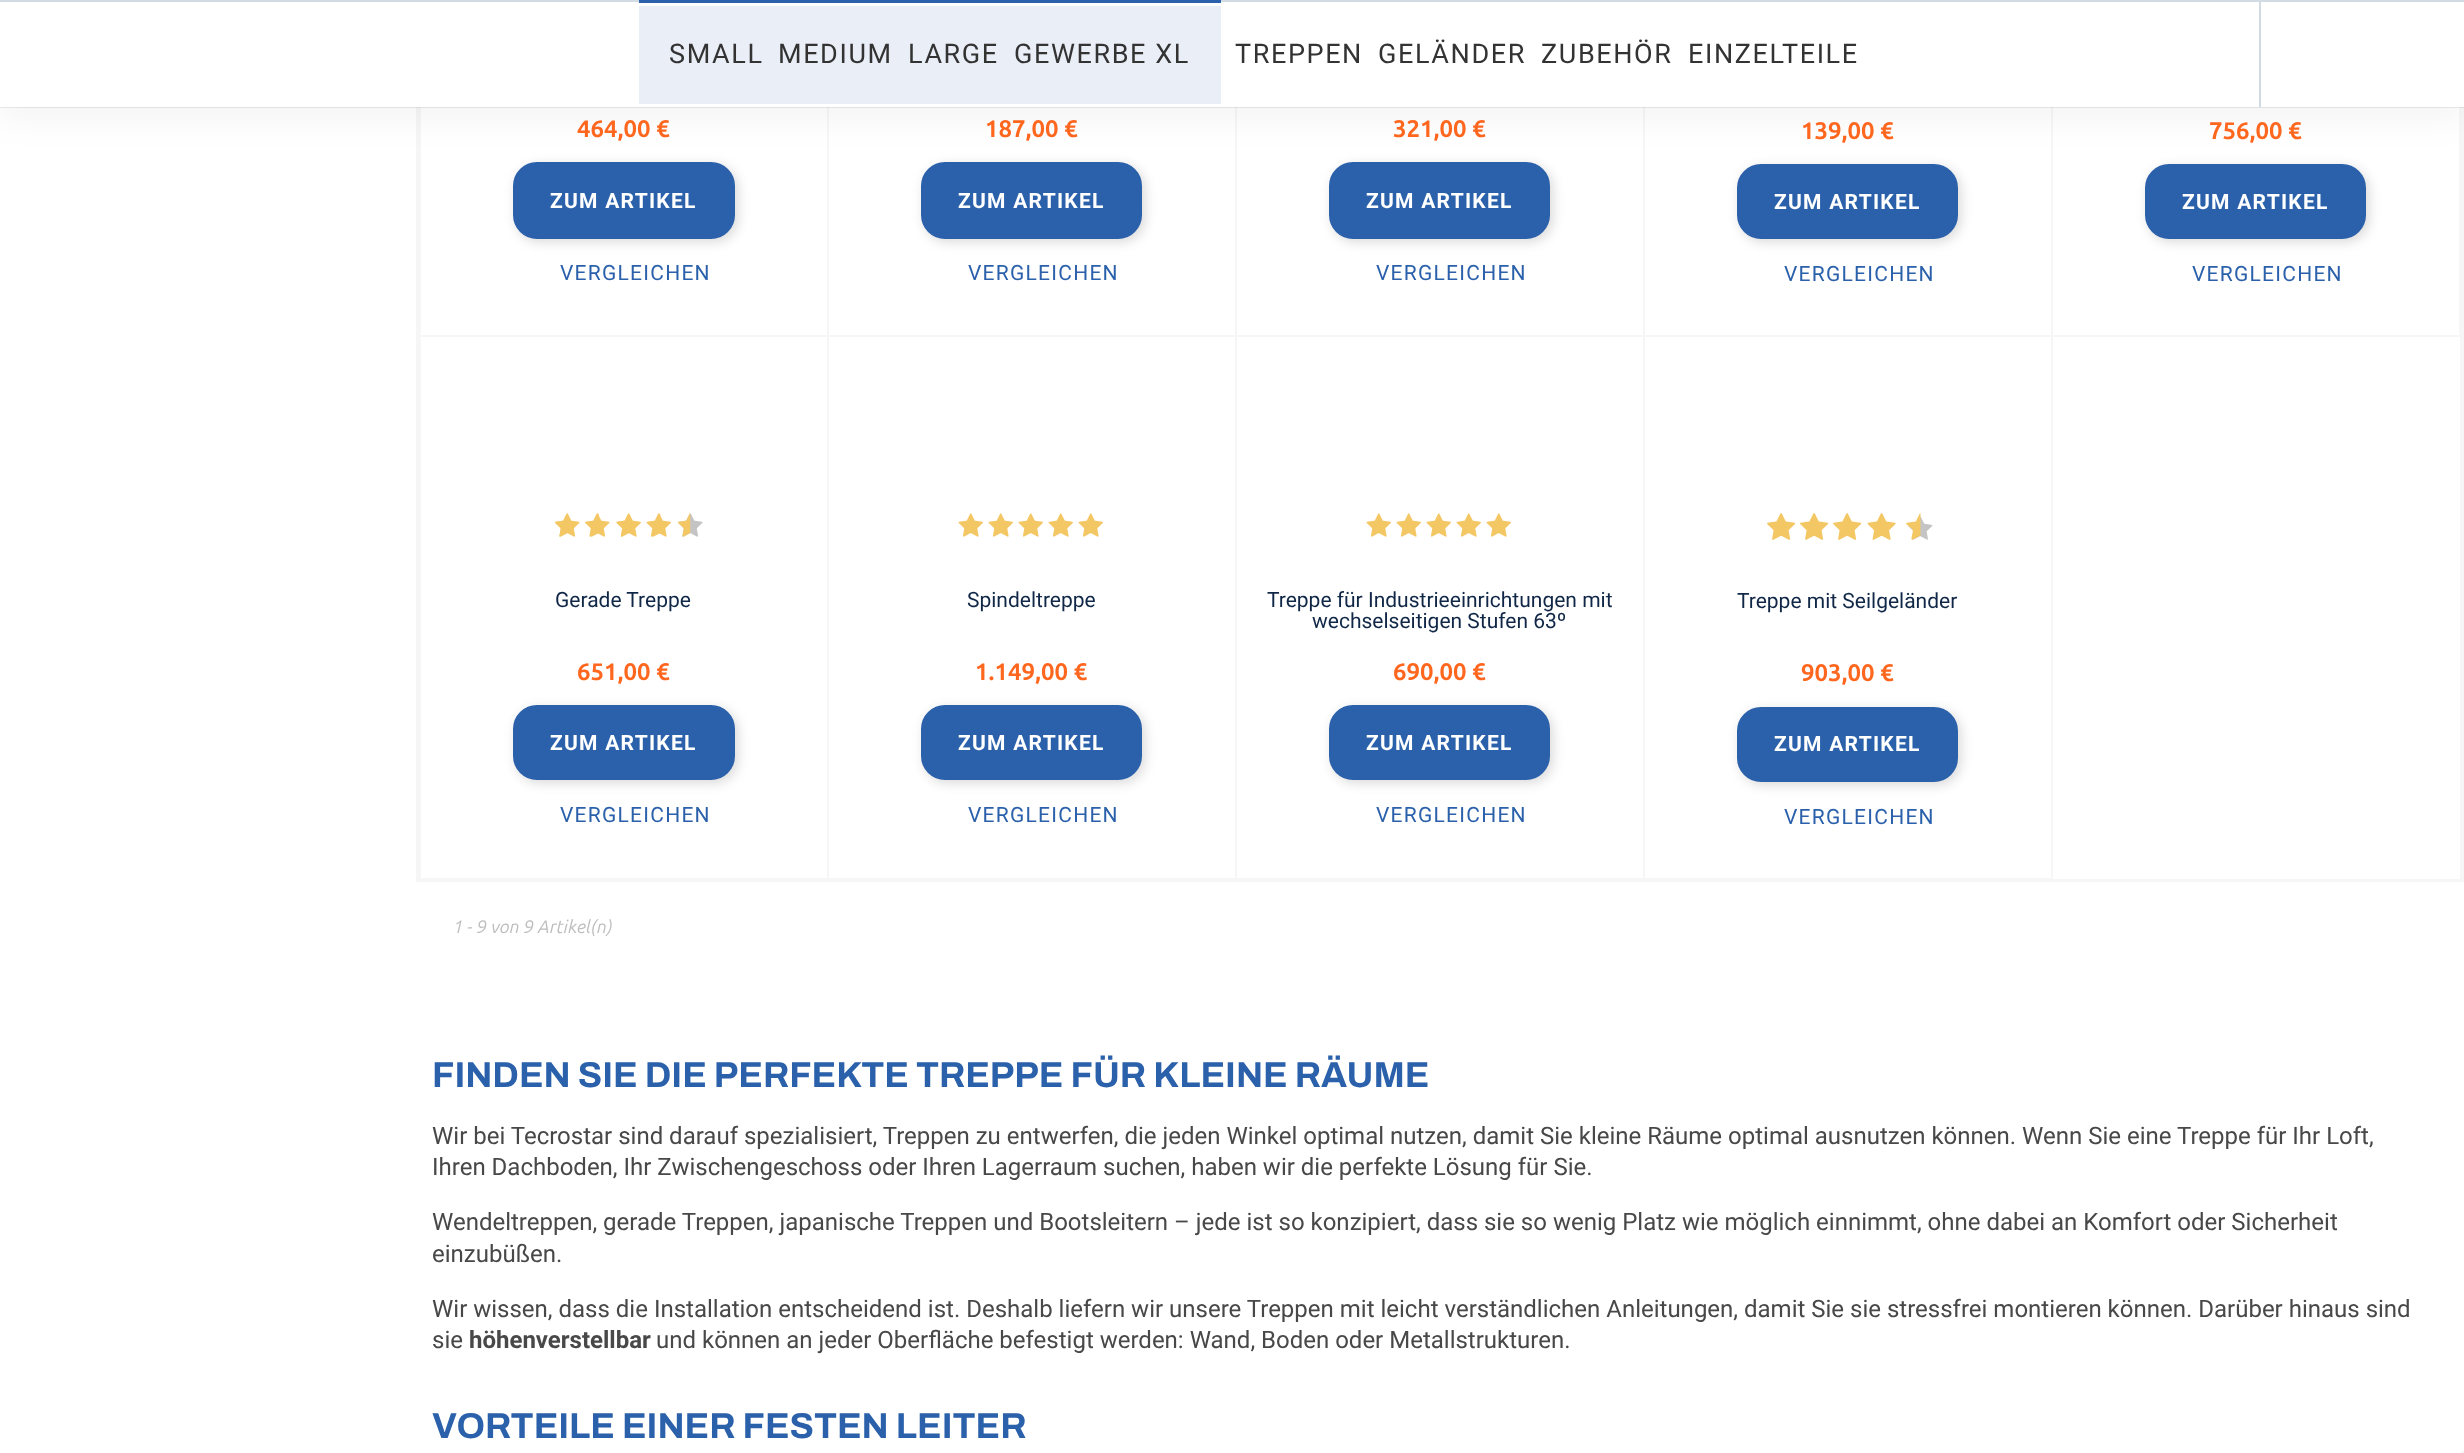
async function draw(canvas) {
  canvas.width = 2464;
  canvas.height = 1453;
  const ctx = canvas.getContext('2d');
  ctx.miterLimit = 4;
  ctx.fontKerning = 'normal';
  function label(s, x, y, font, color) {
    ctx.font = font;
    ctx.fillStyle = color;
    ctx.fillText(s, x, y);
  }
  function rect(x, y, w, h, color) {
    ctx.fillStyle = color;
    ctx.fillRect(x, y, w, h);
  }
  async function image(src, x, y, w, h) {
    const img = new Image();
    img.src = src;
    await img.decode();
    ctx.drawImage(img, x, y, w, h);
  }
  let path;

  rect(0, 0, 2464, 1453, '#fff');
  rect(2460, 107, 4, 775, '#f6f6f6');
  rect(416, 879, 2048, 3, '#f6f6f6');
  rect(416, 107, 5, 775, '#f6f6f6');
  rect(827, 107, 2, 229, '#f6f6f6');
  rect(1235, 107, 2, 229, '#f6f6f6');
  rect(1643, 107, 2, 229, '#f6f6f6');
  rect(2051, 107, 2, 229, '#f6f6f6');
  rect(2459, 107, 1, 229, '#f6f6f6');
  ctx.strokeStyle = '#00000014';
  ctx.lineWidth = 2;
  ctx.strokeRect(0, 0, 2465, 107);
  ctx.fillStyle = '#00000026';
  ctx.filter = 'blur(6px)';
  ctx.beginPath();
  ctx.roundRect(516, 165, 222, 77, 24);
  ctx.fill();
  ctx.filter = 'none';
  ctx.fillStyle = '#2b61ab';
  ctx.beginPath();
  ctx.roundRect(515.5, 164.5, 217, 72, 21.5);
  ctx.fill();
  ctx.strokeStyle = '#2b61ab';
  ctx.lineWidth = 5;
  ctx.stroke();
  ctx.fillStyle = '#00000026';
  ctx.filter = 'blur(6px)';
  ctx.beginPath();
  ctx.roundRect(924, 165, 221, 77, 24);
  ctx.fill();
  ctx.filter = 'none';
  ctx.fillStyle = '#2b61ab';
  ctx.beginPath();
  ctx.roundRect(923.5, 164.5, 216, 72, 21.5);
  ctx.fill();
  ctx.stroke();
  ctx.fillStyle = '#00000026';
  ctx.filter = 'blur(6px)';
  ctx.beginPath();
  ctx.roundRect(1332, 165, 221, 77, 24);
  ctx.fill();
  ctx.filter = 'none';
  ctx.fillStyle = '#2b61ab';
  ctx.beginPath();
  ctx.roundRect(1331.5, 164.5, 216, 72, 21.5);
  ctx.fill();
  ctx.stroke();
  ctx.fillStyle = '#00000026';
  ctx.filter = 'blur(6px)';
  ctx.beginPath();
  ctx.roundRect(1740, 167, 221, 75, 24);
  ctx.fill();
  ctx.filter = 'none';
  ctx.fillStyle = '#2b61ab';
  ctx.beginPath();
  ctx.roundRect(1739.5, 166.5, 216, 70, 21.5);
  ctx.fill();
  ctx.stroke();
  ctx.fillStyle = '#00000026';
  ctx.filter = 'blur(6px)';
  ctx.beginPath();
  ctx.roundRect(2148, 167, 221, 75, 24);
  ctx.fill();
  ctx.filter = 'none';
  ctx.fillStyle = '#2b61ab';
  ctx.beginPath();
  ctx.roundRect(2147.5, 166.5, 216, 70, 21.5);
  ctx.fill();
  ctx.stroke();
  ctx.fillStyle = '#0000000d';
  ctx.filter = 'blur(18px)';
  ctx.beginPath();
  ctx.rect(0, 9, 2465, 107);
  ctx.fill();
  ctx.filter = 'none';
  rect(0, 2, 2464, 105, '#fff');
  rect(0, 0, 2464, 2, '#d2dae3');
  rect(639, 0, 582, 3, '#2b61ab');
  rect(639, 6, 582, 98, '#eaeff7');
  ctx.letterSpacing = '1.6px';
  label('SMALL', 669, 63, '27px Roboto', '#333');
  label('MEDIUM', 778, 63, '27px Roboto', '#333');
  label('LARGE', 908, 63, '27px Roboto', '#333');
  label('GEWERBE XL', 1014, 63, '27px Roboto', '#333');
  label('TREPPEN', 1235, 63, '27px Roboto', '#333');
  label('GELÄNDER', 1378, 63, '27px Roboto', '#333');
  label('ZUBEHÖR', 1541, 63, '27px Roboto', '#333');
  label('EINZELTEILE', 1688, 63, '27px Roboto', '#333');
  rect(2259, 2, 2, 105, '#d2dae3');
  rect(420, 335, 408, 2, '#f6f6f6');
  ctx.letterSpacing = '0px';
  label('464,00 €', 577, 137, 'bold 24px Ubuntu', '#ff671f');
  ctx.letterSpacing = '1.25px';
  label('ZUM ARTIKEL', 550, 208, 'bold 21px Roboto', '#fff');
  label('VERGLEICHEN', 560, 280, '21px Roboto', '#2b61ab');
  rect(828, 335, 408, 2, '#f6f6f6');
  ctx.letterSpacing = '0px';
  label('187,00 €', 985, 137, 'bold 24px Ubuntu', '#ff671f');
  ctx.letterSpacing = '1.25px';
  label('ZUM ARTIKEL', 958, 208, 'bold 21px Roboto', '#fff');
  label('VERGLEICHEN', 968, 280, '21px Roboto', '#2b61ab');
  rect(1236, 335, 408, 2, '#f6f6f6');
  ctx.letterSpacing = '0px';
  label('321,00 €', 1393, 137, 'bold 24px Ubuntu', '#ff671f');
  ctx.letterSpacing = '1.25px';
  label('ZUM ARTIKEL', 1366, 208, 'bold 21px Roboto', '#fff');
  label('VERGLEICHEN', 1376, 280, '21px Roboto', '#2b61ab');
  rect(1644, 335, 408, 2, '#f6f6f6');
  ctx.letterSpacing = '0px';
  label('139,00 €', 1801, 139, 'bold 24px Ubuntu', '#ff671f');
  ctx.letterSpacing = '1.25px';
  label('ZUM ARTIKEL', 1774, 209, 'bold 21px Roboto', '#fff');
  label('VERGLEICHEN', 1784, 281, '21px Roboto', '#2b61ab');
  rect(2052, 335, 408, 2, '#f6f6f6');
  ctx.letterSpacing = '0px';
  label('756,00 €', 2209, 139, 'bold 24px Ubuntu', '#ff671f');
  ctx.letterSpacing = '1.25px';
  label('ZUM ARTIKEL', 2182, 209, 'bold 21px Roboto', '#fff');
  label('VERGLEICHEN', 2192, 281, '21px Roboto', '#2b61ab');
  rect(827, 336, 2, 543, '#f6f6f6');
  rect(420, 878, 408, 1, '#f6f6f6');
  await image('assets/img1.png', 555, 513, 25, 24);
  await image('assets/img2.png', 555, 513, 13, 24);
  await image('assets/img1.png', 585, 513, 25, 24);
  await image('assets/img3.png', 587, 513, 12, 24);
  await image('assets/img4.png', 616, 513, 25, 24);
  await image('assets/img5.png', 616, 513, 13, 24);
  await image('assets/img4.png', 646, 513, 25, 24);
  await image('assets/img6.png', 648, 513, 13, 24);
  await image('assets/img7.png', 678, 513, 25, 24);
  await image('assets/img8.png', 678, 513, 13, 24);
  ctx.letterSpacing = '0px';
  label('Gerade Treppe', 555, 607, '21px Roboto', '#102747');
  label('651,00 €', 577, 680, 'bold 24px Ubuntu', '#ff671f');
  ctx.fillStyle = '#00000026';
  ctx.filter = 'blur(6px)';
  ctx.beginPath();
  ctx.roundRect(516, 708, 222, 75, 24);
  ctx.fill();
  ctx.filter = 'none';
  ctx.fillStyle = '#2b61ab';
  ctx.beginPath();
  ctx.roundRect(515.5, 707.5, 217, 70, 21.5);
  ctx.fill();
  ctx.stroke();
  ctx.letterSpacing = '1.25px';
  label('ZUM ARTIKEL', 550, 750, 'bold 21px Roboto', '#fff');
  label('VERGLEICHEN', 560, 822, '21px Roboto', '#2b61ab');
  rect(1235, 336, 2, 543, '#f6f6f6');
  rect(828, 878, 408, 1, '#f6f6f6');
  await image('assets/img4.png', 958, 513, 25, 24);
  await image('assets/img4.png', 988, 513, 25, 24);
  await image('assets/img4.png', 1018, 513, 25, 24);
  await image('assets/img4.png', 1048, 513, 25, 24);
  await image('assets/img4.png', 1078, 513, 25, 24);
  ctx.letterSpacing = '0px';
  label('Spindeltreppe', 967, 607, '21px Roboto', '#102747');
  label('1.149,00 €', 975, 680, 'bold 24px Ubuntu', '#ff671f');
  ctx.fillStyle = '#00000026';
  ctx.filter = 'blur(6px)';
  ctx.beginPath();
  ctx.roundRect(924, 708, 221, 75, 24);
  ctx.fill();
  ctx.filter = 'none';
  ctx.fillStyle = '#2b61ab';
  ctx.beginPath();
  ctx.roundRect(923.5, 707.5, 216, 70, 21.5);
  ctx.fill();
  ctx.stroke();
  ctx.letterSpacing = '1.25px';
  label('ZUM ARTIKEL', 958, 750, 'bold 21px Roboto', '#fff');
  label('VERGLEICHEN', 968, 822, '21px Roboto', '#2b61ab');
  rect(1643, 336, 2, 543, '#f6f6f6');
  rect(1236, 878, 408, 1, '#f6f6f6');
  await image('assets/img4.png', 1366, 513, 25, 24);
  await image('assets/img4.png', 1396, 513, 25, 24);
  await image('assets/img4.png', 1426, 513, 25, 24);
  await image('assets/img4.png', 1456, 513, 25, 24);
  await image('assets/img4.png', 1486, 513, 25, 24);
  ctx.letterSpacing = '0px';
  label('Treppe für Industrieeinrichtungen mit', 1267, 607, '21px Roboto', '#102747');
  label('wechselseitigen Stufen 63º', 1312, 628, '21px Roboto', '#102747');
  label('690,00 €', 1393, 680, 'bold 24px Ubuntu', '#ff671f');
  ctx.fillStyle = '#00000026';
  ctx.filter = 'blur(6px)';
  ctx.beginPath();
  ctx.roundRect(1332, 708, 221, 75, 24);
  ctx.fill();
  ctx.filter = 'none';
  ctx.fillStyle = '#2b61ab';
  ctx.beginPath();
  ctx.roundRect(1331.5, 707.5, 216, 70, 21.5);
  ctx.fill();
  ctx.stroke();
  ctx.letterSpacing = '1.25px';
  label('ZUM ARTIKEL', 1366, 750, 'bold 21px Roboto', '#fff');
  label('VERGLEICHEN', 1376, 822, '21px Roboto', '#2b61ab');
  rect(2051, 336, 2, 543, '#f6f6f6');
  rect(1644, 878, 408, 1, '#f6f6f6');
  await image('assets/img9.png', 1767, 513, 29, 27);
  await image('assets/img9.png', 1800, 513, 29, 27);
  await image('assets/img9.png', 1833, 513, 29, 27);
  await image('assets/img10.png', 1867, 513, 29, 27);
  await image('assets/img11.png', 1908, 516, 25, 24);
  ctx.fillStyle = '#f4c765';
  path = new Path2D('M1920.5 513C1919.5 513 1916.5 520.5 1916 521.5C1903 523.5 1904 521.5 1913 530C1911 542.5 1909 541.5 1920.5 535.5Z');
  ctx.fill(path);
  ctx.letterSpacing = '0px';
  label('Treppe mit Seilgeländer', 1737, 608, '21px Roboto', '#102747');
  label('903,00 €', 1801, 681, 'bold 24px Ubuntu', '#ff671f');
  ctx.fillStyle = '#00000026';
  ctx.filter = 'blur(6px)';
  ctx.beginPath();
  ctx.roundRect(1740, 710, 221, 75, 24);
  ctx.fill();
  ctx.filter = 'none';
  ctx.fillStyle = '#2b61ab';
  ctx.beginPath();
  ctx.roundRect(1739.5, 709.5, 216, 70, 21.5);
  ctx.fill();
  ctx.stroke();
  ctx.letterSpacing = '1.25px';
  label('ZUM ARTIKEL', 1774, 751, 'bold 21px Roboto', '#fff');
  label('VERGLEICHEN', 1784, 824, '21px Roboto', '#2b61ab');
  ctx.letterSpacing = '0px';
  label('1 - 9 von 9 Artikel(n)', 453, 933, 'italic 18px Ubuntu', '#bdbdbd');
  label('FINDEN SIE DIE PERFEKTE TREPPE FÜR KLEINE RÄUME', 432, 1087, 'bold 36px Archivo', '#2b61ab');
  label('Wir bei Tecrostar sind darauf spezialisiert, Treppen zu entwerfen, die jeden Winkel optimal nutzen, damit Sie kleine Räume optimal ausnutzen können. Wenn Sie eine Treppe für Ihr Loft,', 432, 1144, '24px Roboto', '#484848');
  label('Ihren Dachboden, Ihr Zwischengeschoss oder Ihren Lagerraum suchen, haben wir die perfekte Lösung für Sie.', 432, 1175, '24px Roboto', '#484848');
  label('Wendeltreppen, gerade Treppen, japanische Treppen und Bootsleitern – jede ist so konzipiert, dass sie so wenig Platz wie möglich einnimmt, ohne dabei an Komfort oder Sicherheit', 432, 1230, '24px Roboto', '#484848');
  label('einzubüßen.', 432, 1262, '24px Roboto', '#484848');
  label('Wir wissen, dass die Installation entscheidend ist. Deshalb liefern wir unsere Treppen mit leicht verständlichen Anleitungen, damit Sie sie stressfrei montieren können. Darüber hinaus sind', 432, 1317, '24px Roboto', '#484848');
  label('sie', 432, 1348, '24px Roboto', '#484848');
  label('höhenverstellbar', 469, 1348, 'bold 24px Roboto', '#484848');
  label('und können an jeder Oberfläche befestigt werden: Wand, Boden oder Metallstrukturen.', 656, 1348, '24px Roboto', '#484848');
  label('VORTEILE EINER FESTEN LEITER', 432, 1438, 'bold 36px Archivo', '#2b61ab');
  rect(2462, 1451, 2, 2, '#f5f5f5');
}

draw(document.querySelector('canvas'));
